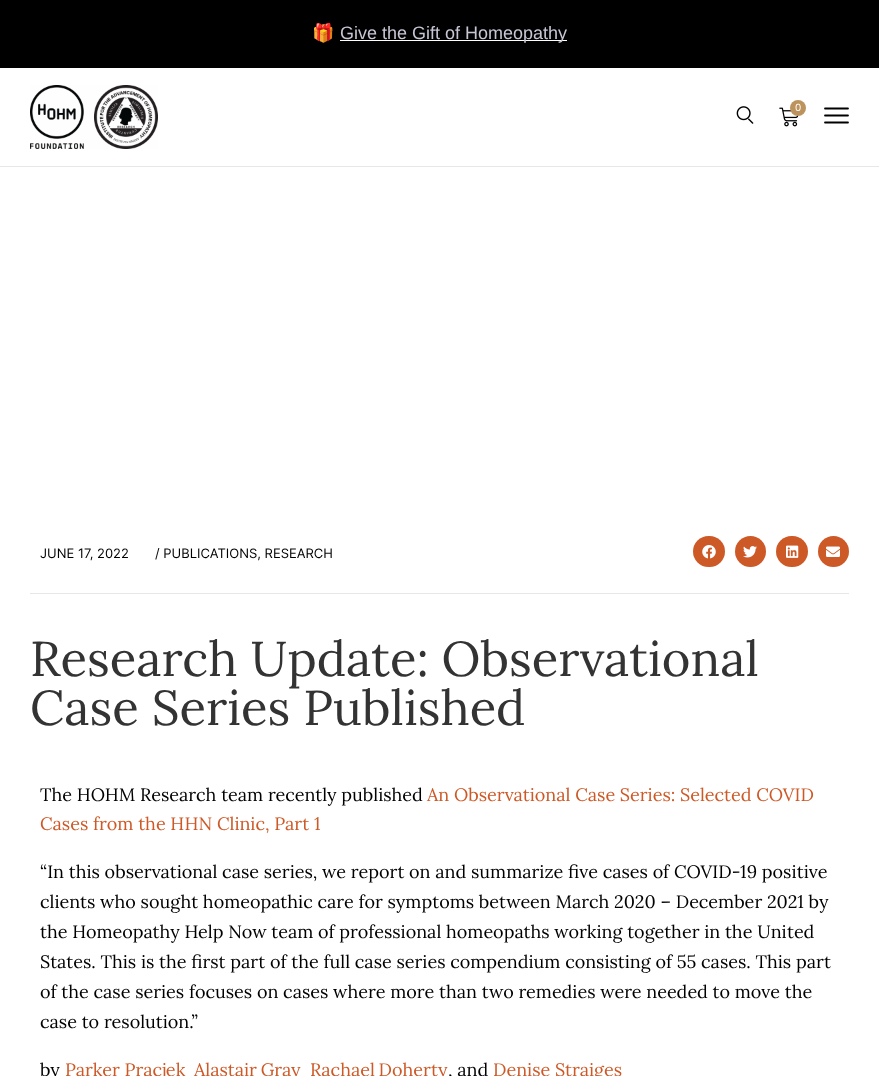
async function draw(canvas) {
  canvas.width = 879;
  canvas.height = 1076;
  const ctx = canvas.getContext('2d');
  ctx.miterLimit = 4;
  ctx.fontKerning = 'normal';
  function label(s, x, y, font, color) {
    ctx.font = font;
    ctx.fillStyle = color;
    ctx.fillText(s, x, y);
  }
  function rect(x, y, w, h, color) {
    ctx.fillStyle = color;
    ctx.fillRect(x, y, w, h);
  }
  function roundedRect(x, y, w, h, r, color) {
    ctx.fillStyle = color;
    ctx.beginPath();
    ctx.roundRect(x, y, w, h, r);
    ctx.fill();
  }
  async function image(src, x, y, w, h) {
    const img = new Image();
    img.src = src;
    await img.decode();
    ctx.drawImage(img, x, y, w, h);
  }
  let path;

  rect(0, 0, 879, 1076, '#fff');
  rect(0, 0, 879, 68, '#000');
  label('🎁', 312, 39, '18px Noto Color Emoji', '#fff');
  rect(340, 40, 227, 1, '#fff');
  label('Give the Gift of Homeopathy', 340, 39, '18px Liberation Sans', '#c7c6d5');
  rect(0, 166, 879, 1, '#e7e7e7');
  await image('assets/img1.png', 30, 85, 128, 64);
  await image('assets/img2.png', 736, 106, 18, 18);
  await image('assets/img3.png', 779, 107, 20, 20);
  ctx.fillStyle = '#bc935c';
  ctx.beginPath();
  ctx.arc(798, 108, 8, 0, 2 * Math.PI);
  ctx.fill();
  label('0', 795, 111, '10px Inter', '#fff');
  path = new Path2D('M825 108.5H848M825 115.5H848M825 122.5H848');
  ctx.strokeStyle = '#000';
  ctx.lineWidth = 1.8;
  ctx.lineCap = 'round';
  ctx.stroke(path);
  rect(30, 593, 819, 1, '#e7e7e7');
  label('JUNE 17, 2022', 40, 558, '13px Inter', '#000');
  label('/ PUBLICATIONS, RESEARCH', 155, 558, '13px Inter', '#000');
  roundedRect(693, 536, 32, 31, 15.5, '#cd5927');
  await image('assets/img4.png', 702, 545, 14, 14);
  ctx.beginPath();
  ctx.arc(750.5, 551.5, 15.5, 0, 2 * Math.PI);
  ctx.fill();
  await image('assets/img5.png', 743, 546, 14, 12);
  roundedRect(776, 536, 32, 31, 15.5, '#cd5927');
  await image('assets/img6.png', 786, 545, 13, 13);
  ctx.beginPath();
  ctx.arc(833.5, 551.5, 15.5, 0, 2 * Math.PI);
  ctx.fill();
  await image('assets/img7.png', 826, 546, 14, 11);
  label('Research Update: Observational', 30, 676, '49px Lora', '#333');
  label('Case Series Published', 30, 725, '49px Lora', '#333');
  label('The HOHM Research team recently published', 40, 801, '18px Lora', '#000');
  label('An Observational Case Series: Selected COVID', 427, 801, '18px Lora', '#cd5927');
  label('Cases from the HHN Clinic, Part 1', 40, 830, '18px Lora', '#cd5927');
  label('“In this observational case series, we report on and summarize five cases of COVID-19 positive', 40, 878, '18px Lora', '#000');
  label('clients who sought homeopathic care for symptoms between March 2020 – December 2021 by', 40, 908, '18px Lora', '#000');
  label('the Homeopathy Help Now team of professional homeopaths working together in the United', 40, 938, '18px Lora', '#000');
  label('States. This is the first part of the full case series compendium consisting of 55 cases. This part', 40, 968, '18px Lora', '#000');
  label('of the case series focuses on cases where more than two remedies were needed to move the', 40, 998, '18px Lora', '#000');
  label('case to resolution.”', 40, 1028, '18px Lora', '#000');
  label('by', 40, 1076, '18px Lora', '#000');
  label('Parker Pracjek', 65, 1076, '18px Lora', '#cd5927');
  ctx.wordSpacing = '-1px';
  label('Alastair Gray', 194, 1076, '18px Lora', '#cd5927');
  label('Rachael Doherty', 310, 1076, '18px Lora', '#cd5927');
  ctx.wordSpacing = '0px';
  label(', and', 448, 1076, '18px Lora', '#000');
  label('Denise Straiges', 493, 1076, '18px Lora', '#cd5927');
}

draw(document.querySelector('canvas'));
